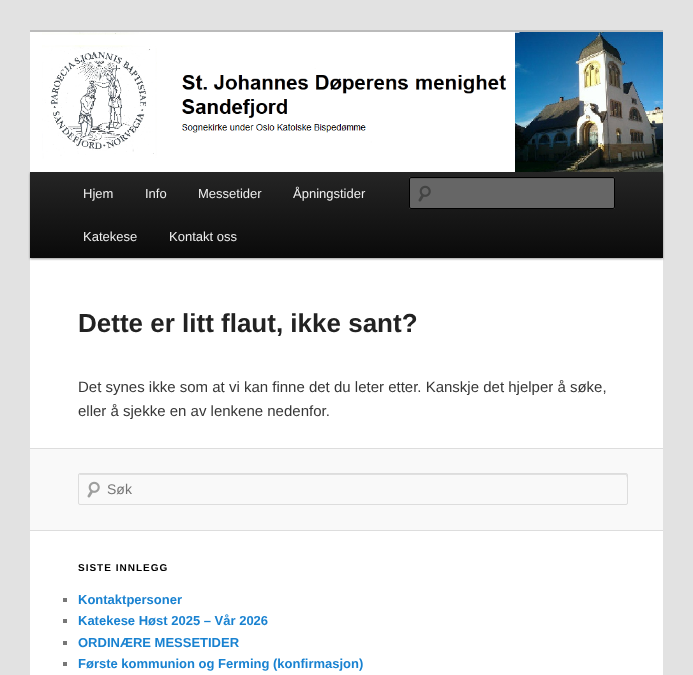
async function draw(canvas) {
  canvas.width = 693;
  canvas.height = 675;
  const ctx = canvas.getContext('2d');
  ctx.miterLimit = 4;
  ctx.fontKerning = 'normal';
  function label(s, x, y, font, color) {
    ctx.font = font;
    ctx.fillStyle = color;
    ctx.fillText(s, x, y);
  }
  function rect(x, y, w, h, color) {
    ctx.fillStyle = color;
    ctx.fillRect(x, y, w, h);
  }
  function roundedRect(x, y, w, h, r, color) {
    ctx.fillStyle = color;
    ctx.beginPath();
    ctx.roundRect(x, y, w, h, r);
    ctx.fill();
  }
  async function image(src, x, y, w, h) {
    const img = new Image();
    img.src = src;
    await img.decode();
    ctx.drawImage(img, x, y, w, h);
  }
  let gradient, path;

  rect(0, 0, 693, 675, '#e2e2e2');
  rect(30, 258, 633, 417, '#fff');
  rect(30, 30, 633, 2, '#bbb');
  ctx.fillStyle = '#00000066';
  ctx.filter = 'blur(1px)';
  ctx.beginPath();
  ctx.rect(30, 173, 633, 86);
  ctx.fill();
  ctx.filter = 'none';
  await image('assets/img1.png', 30, 32, 633, 140);
  gradient = ctx.createLinearGradient(347, 172, 347, 258);
  gradient.addColorStop(0, '#252525');
  gradient.addColorStop(1, '#0a0a0a');
  ctx.fillStyle = gradient;
  ctx.fillRect(30, 172, 633, 86);
  label('Hjem', 83, 198, '13px Liberation Sans', '#eee');
  label('Info', 145, 198, '13px Liberation Sans', '#eee');
  label('Messetider', 198, 198, '13px Liberation Sans', '#eee');
  label('Åpningstider', 293, 198, '13px Liberation Sans', '#eee');
  label('Katekese', 83, 241, '13px Liberation Sans', '#eee');
  label('Kontakt oss', 169, 241, '13px Liberation Sans', '#eee');
  roundedRect(409, 177, 206, 32, 2, '#666');
  await image('assets/img2.png', 418, 185, 13, 17);
  ctx.fillStyle = '#5c5c5c';
  path = new Path2D('M411 179H614V180C614 179 614 178 613 178H411H410V180C410 179 410 179 411 179Z');
  ctx.fill(path);
  ctx.beginPath();
  ctx.roundRect(409.5, 177.5, 205, 31, 1.5);
  ctx.strokeStyle = '#000';
  ctx.stroke();
  label('Dette er litt flaut, ikke sant?', 78, 332, 'bold 26px Liberation Sans', '#222');
  label('Det synes ikke som at vi kan finne det du leter etter. Kanskje det hjelper å søke,', 78, 392, '15px Liberation Sans', '#373737');
  label('eller å sjekke en av lenkene nedenfor.', 78, 416, '15px Liberation Sans', '#373737');
  rect(30, 449, 633, 81, '#f9f9f9');
  rect(30, 448, 633, 1, '#ddd');
  rect(30, 530, 633, 1, '#ddd');
  await image('assets/img3.png', 87, 481, 13, 17);
  ctx.fillStyle = '#e0e0e0';
  path = new Path2D('M80 474L79 475H626L627 478C627 477 628 474 626 474Z');
  ctx.fill(path);
  ctx.beginPath();
  ctx.roundRect(78.5, 473.5, 549, 31, 1.5);
  ctx.strokeStyle = '#ddd';
  ctx.stroke();
  label('Søk', 107, 494, '14px Liberation Sans', '#757575');
  ctx.letterSpacing = '1px';
  label('SISTE INNLEGG', 78, 571, 'bold 10px Liberation Sans', '#000');
  rect(63, 598, 4, 4, '#777');
  ctx.letterSpacing = '0px';
  label('Kontaktpersoner', 78, 604, 'bold 13px Liberation Sans', '#1982d1');
  rect(63, 619, 4, 4, '#777');
  label('Katekese Høst 2025 – Vår 2026', 78, 625, 'bold 13px Liberation Sans', '#1982d1');
  rect(63, 641, 4, 4, '#777');
  label('ORDINÆRE MESSETIDER', 78, 647, 'bold 13px Liberation Sans', '#1982d1');
  rect(63, 662, 4, 4, '#777');
  label('Første kommunion og Ferming (konfirmasjon)', 78, 668, 'bold 13px Liberation Sans', '#1982d1');
}

draw(document.querySelector('canvas'));
